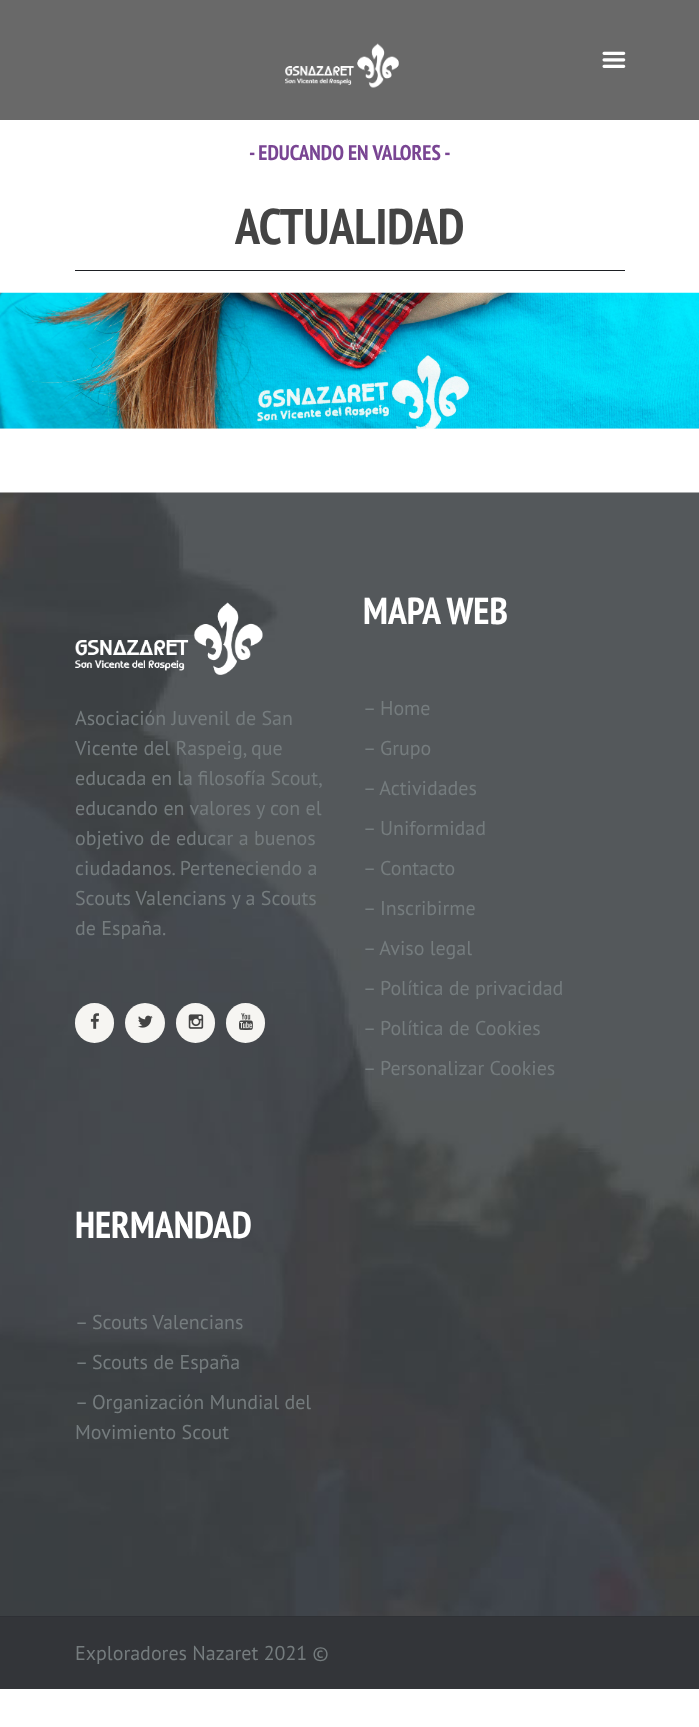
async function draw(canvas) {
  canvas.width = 699;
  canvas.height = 1727;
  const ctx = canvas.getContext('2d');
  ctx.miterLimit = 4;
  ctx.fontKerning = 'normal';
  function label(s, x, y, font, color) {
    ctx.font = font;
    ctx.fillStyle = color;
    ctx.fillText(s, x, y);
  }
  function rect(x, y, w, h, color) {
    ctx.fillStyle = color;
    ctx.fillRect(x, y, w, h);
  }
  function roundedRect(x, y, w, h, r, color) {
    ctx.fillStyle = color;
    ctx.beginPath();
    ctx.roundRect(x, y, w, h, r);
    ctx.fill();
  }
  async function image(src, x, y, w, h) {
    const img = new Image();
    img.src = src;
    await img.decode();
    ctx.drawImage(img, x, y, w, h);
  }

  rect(0, 0, 699, 1727, '#fff');
  rect(0, 0, 699, 120, '#696969');
  await image('assets/img1.png', 285, 43, 114, 45);
  await image('assets/img2.png', 602, 51, 24, 17);
  label('- EDUCANDO EN VALORES -', 249, 160, 'bold 21.25px PT Sans Narrow', '#794593');
  label('ACTUALIDAD', 235, 244, 'bold 50px PT Sans Narrow', '#444');
  rect(75, 270, 550, 1, '#1d1f23');
  await image('assets/img3.png', 0, 292, 699, 137);
  await image('assets/img4.png', 0, 492, 699, 1125);
  await image('assets/img5.png', 75, 602, 188, 73);
  label('Asociación Juvenil de San', 75, 725, '20px PT Sans', '#757c7e');
  label('Vicente del Raspeig, que', 75, 755, '20px PT Sans', '#757c7e');
  ctx.wordSpacing = '-0.5px';
  label('educada en la filosofía Scout,', 75, 785, '20px PT Sans', '#757c7e');
  ctx.wordSpacing = '0px';
  label('educando en valores y con el', 75, 815, '20px PT Sans', '#757c7e');
  label('objetivo de educar a buenos', 75, 845, '20px PT Sans', '#757c7e');
  label('ciudadanos. Perteneciendo a', 75, 875, '20px PT Sans', '#757c7e');
  label('Scouts Valencians y a Scouts', 75, 905, '20px PT Sans', '#757c7e');
  label('de España.', 75, 935, '20px PT Sans', '#757c7e');
  roundedRect(75, 1003, 39, 40, 19.5, '#f6f5f2');
  await image('assets/img6.png', 90, 1013, 9, 16);
  ctx.beginPath();
  ctx.arc(145, 1023, 20, 0, 2 * Math.PI);
  ctx.fill();
  await image('assets/img7.png', 138, 1015, 15, 13);
  roundedRect(176, 1003, 39, 40, 19.5, '#f6f5f2');
  await image('assets/img8.png', 188, 1014, 16, 15);
  roundedRect(226, 1003, 39, 40, 19.5, '#f6f5f2');
  await image('assets/img9.png', 239, 1013, 14, 17);
  label('MAPA WEB', 363, 624, 'bold 37.5px PT Sans Narrow', '#fff');
  label('– Home', 363, 715, '20px PT Sans', '#757c7e');
  label('– Grupo', 363, 755, '20px PT Sans', '#757c7e');
  label('– Actividades', 363, 795, '20px PT Sans', '#757c7e');
  label('– Uniformidad', 363, 835, '20px PT Sans', '#757c7e');
  label('– Contacto', 363, 875, '20px PT Sans', '#757c7e');
  label('– Inscribirme', 363, 915, '20px PT Sans', '#757c7e');
  label('– Aviso legal', 363, 955, '20px PT Sans', '#757c7e');
  label('– Política de privacidad', 363, 995, '20px PT Sans', '#757c7e');
  label('– Política de Cookies', 363, 1035, '20px PT Sans', '#757c7e');
  label('– Personalizar Cookies', 363, 1075, '20px PT Sans', '#757c7e');
  label('HERMANDAD', 75, 1238, 'bold 37.5px PT Sans Narrow', '#fff');
  label('– Scouts Valencians', 75, 1329, '20px PT Sans', '#757c7e');
  label('– Scouts de España', 75, 1369, '20px PT Sans', '#757c7e');
  label('– Organización Mundial del', 75, 1409, '20px PT Sans', '#757c7e');
  label('Movimiento Scout', 75, 1439, '20px PT Sans', '#757c7e');
  rect(0, 1616, 699, 73, '#1d1f23e6');
  label('Exploradores Nazaret 2021 ©', 75, 1660, '20px PT Sans', '#757c7e');
}

draw(document.querySelector('canvas'));
